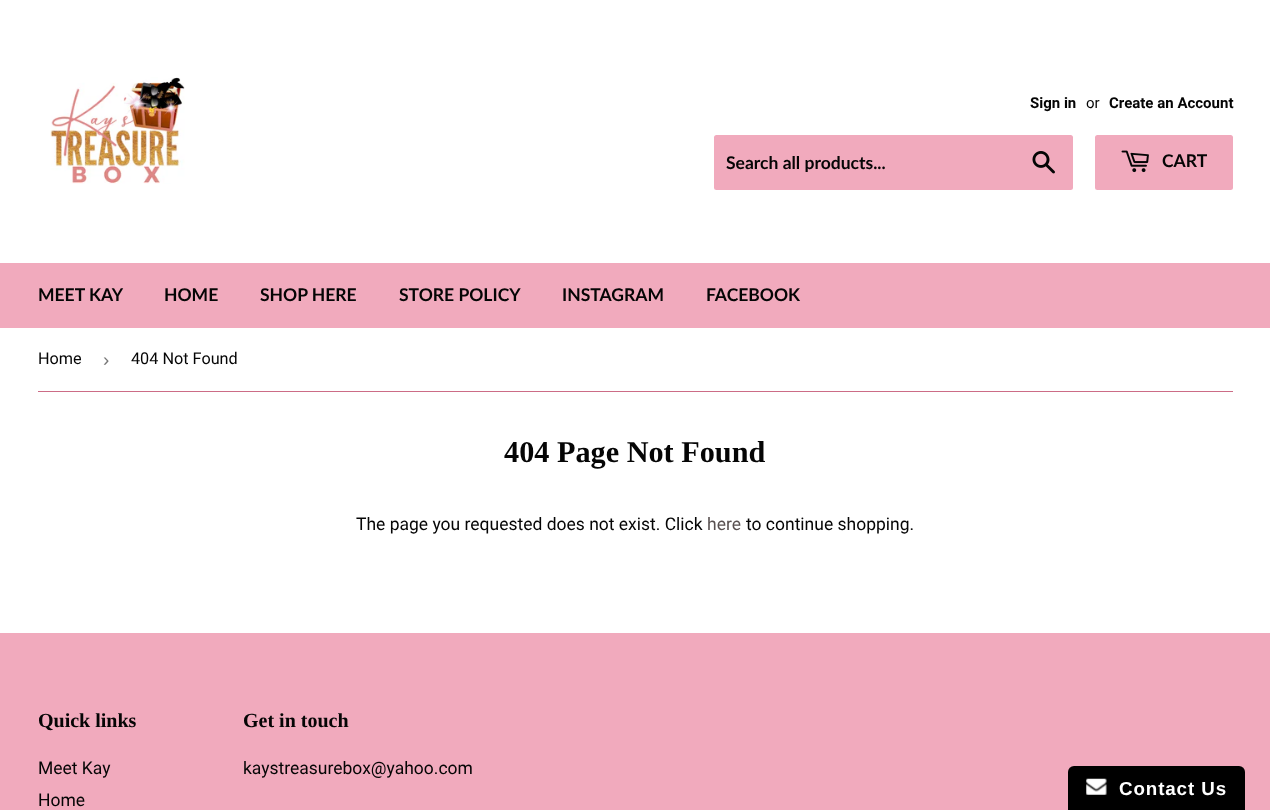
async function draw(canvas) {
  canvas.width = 1270;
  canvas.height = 810;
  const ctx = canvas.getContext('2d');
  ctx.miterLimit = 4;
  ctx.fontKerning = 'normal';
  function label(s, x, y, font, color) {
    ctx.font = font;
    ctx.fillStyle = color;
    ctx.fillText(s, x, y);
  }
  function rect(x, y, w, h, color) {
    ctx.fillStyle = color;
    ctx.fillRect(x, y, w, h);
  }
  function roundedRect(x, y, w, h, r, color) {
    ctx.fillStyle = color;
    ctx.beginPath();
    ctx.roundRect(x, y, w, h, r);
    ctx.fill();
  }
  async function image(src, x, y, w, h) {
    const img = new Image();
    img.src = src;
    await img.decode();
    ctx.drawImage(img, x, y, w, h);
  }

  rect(0, 0, 1270, 810, '#fff');
  await image('assets/img1.png', 50, 77, 135, 107);
  label('Sign in', 1030, 108, 'bold 15px Roboto', '#050505');
  label('or', 1086, 108, '15px Roboto', '#050505');
  label('Create an Account', 1109, 108, 'bold 15px Roboto', '#050505');
  roundedRect(714, 135, 359, 55, 2.5, '#f1aabd');
  label('Search all products...', 726, 169, 'bold 17.5px Lato', '#050505');
  await image('assets/img2.png', 1032, 151, 23, 23);
  roundedRect(1095, 135, 138, 55, 2.5, '#f1aabd');
  await image('assets/img3.png', 1121, 150, 28, 23);
  label('CART', 1162, 167, 'bold 17.5px Lato', '#050505');
  rect(0, 263, 1270, 65, '#f1aabd');
  label('MEET KAY', 38, 301, 'bold 17.5px Lato', '#050505');
  label('HOME', 164, 301, 'bold 17.5px Lato', '#050505');
  label('SHOP HERE', 260, 301, 'bold 17.5px Lato', '#050505');
  label('STORE POLICY', 399, 301, 'bold 17.5px Lato', '#050505');
  label('INSTAGRAM', 562, 301, 'bold 17.5px Lato', '#050505');
  label('FACEBOOK', 706, 301, 'bold 17.5px Lato', '#050505');
  rect(38, 391, 1195, 1, '#cc6c86');
  label('Home', 38, 364, '16.25px Roboto', '#050505');
  label('›', 103, 366, '18.75px Liberation Sans', '#767676');
  label('404 Not Found', 131, 364, '16.25px Roboto', '#050505');
  label('404 Page Not Found', 504, 462, 'bold 30.25px Liberation Serif', '#050505');
  label('The page you requested does not exist. Click', 356, 530, '17.5px Roboto', '#050505');
  label('here', 707, 530, '17.5px Roboto', '#585050');
  label('to continue shopping.', 746, 530, '17.5px Roboto', '#050505');
  rect(0, 633, 1270, 177, '#f1aabd');
  label('Quick links', 38, 727, 'bold 20px Liberation Serif', '#050505');
  label('Meet Kay', 38, 774, '17.5px Roboto', '#050505');
  label('Home', 38, 806, '17.5px Roboto', '#050505');
  label('Get in touch', 243, 727, 'bold 20px Liberation Serif', '#050505');
  label('kaystreasurebox@yahoo.com', 243, 774, '17.5px Roboto', '#050505');
  ctx.fillStyle = '#000';
  ctx.beginPath();
  ctx.roundRect(1068, 766, 177, 44, [6, 6, 0, 0]);
  ctx.fill();
  await image('assets/img4.png', 1086, 778, 21, 17);
  ctx.letterSpacing = '0.9px';
  label('Contact Us', 1119, 795, 'bold 18.75px Liberation Sans', '#fff');
}

draw(document.querySelector('canvas'));
